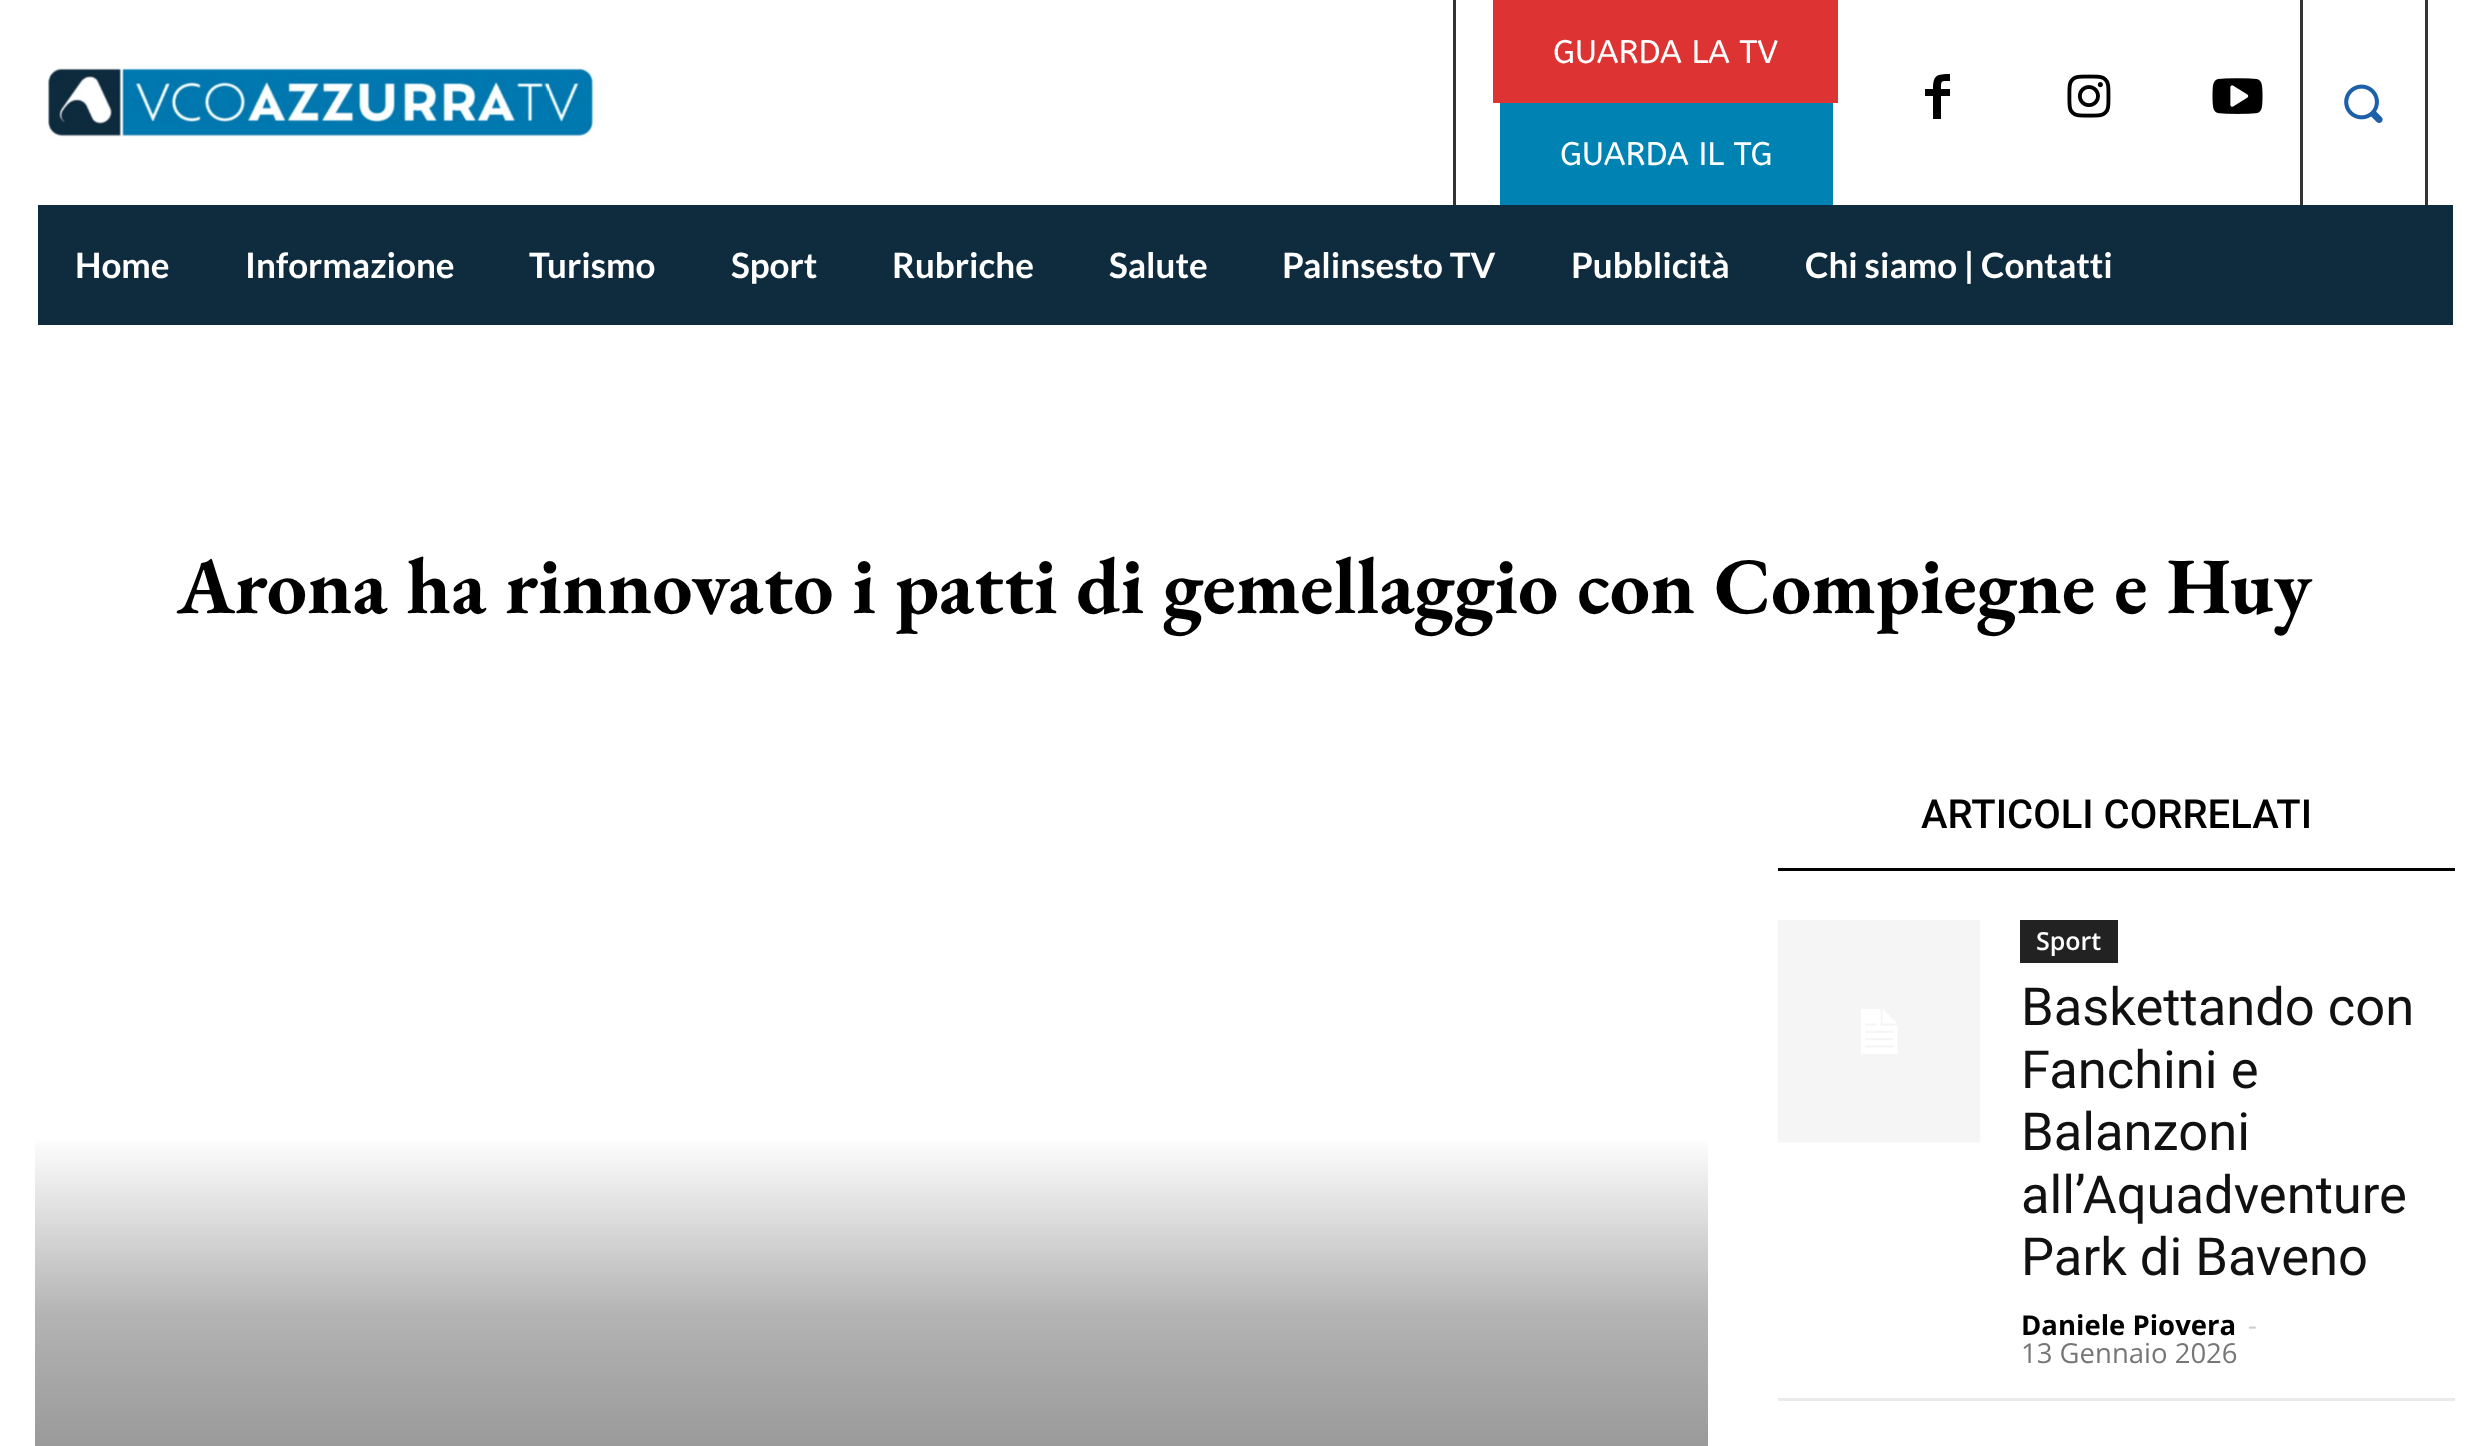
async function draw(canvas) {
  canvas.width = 2490;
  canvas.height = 1446;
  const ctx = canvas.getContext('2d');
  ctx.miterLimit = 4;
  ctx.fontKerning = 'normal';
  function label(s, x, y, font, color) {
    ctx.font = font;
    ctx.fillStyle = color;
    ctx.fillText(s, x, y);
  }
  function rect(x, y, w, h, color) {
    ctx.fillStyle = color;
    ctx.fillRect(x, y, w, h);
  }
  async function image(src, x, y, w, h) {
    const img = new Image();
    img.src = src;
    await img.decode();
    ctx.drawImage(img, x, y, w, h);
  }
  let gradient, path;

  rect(0, 0, 2490, 1446, '#fff');
  await image('assets/img1.png', 47, 68, 547, 72);
  rect(1453, 0, 3, 205, '#333');
  rect(1493, 0, 345, 103, '#d33');
  label('GUARDA LA TV', 1553, 63, '32.5px ABeeZee', '#fff');
  rect(1500, 103, 333, 102, '#0083b3');
  label('GUARDA IL TG', 1560, 165, '32.5px ABeeZee', '#fff');
  rect(2300, 0, 3, 205, '#333');
  ctx.fillStyle = '#000';
  path = new Path2D('M1950 81C1941 81 1941 80 1941 89H1950V96H1941V119H1933V96H1925V89H1933C1933 75 1937 74 1950 74Z');
  ctx.fill(path);
  await image('assets/img2.png', 2067, 74, 44, 44);
  await image('assets/img3.png', 2212, 78, 51, 36);
  rect(2425, 0, 3, 205, '#333');
  await image('assets/img4.png', 2344, 84, 39, 39);
  rect(38, 205, 2415, 120, '#0f2b3e');
  label('Home', 75, 278, 'bold 35px Lato', '#fff');
  label('Informazione', 245, 278, 'bold 35px Lato', '#fff');
  label('Turismo', 529, 278, 'bold 35px Lato', '#fff');
  label('Sport', 731, 278, 'bold 35px Lato', '#fff');
  label('Rubriche', 892, 278, 'bold 35px Lato', '#fff');
  label('Salute', 1109, 278, 'bold 35px Lato', '#fff');
  label('Palinsesto TV', 1282, 278, 'bold 35px Lato', '#fff');
  label('Pubblicità', 1571, 278, 'bold 35px Lato', '#fff');
  label('Chi siamo | Contatti', 1805, 278, 'bold 35px Lato', '#fff');
  label('Arona ha rinnovato i patti di gemellaggio con Compiegne e Huy', 177, 613, 'bold 80px EB Garamond', '#000');
  gradient = ctx.createLinearGradient(871, 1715, 871, 765);
  gradient.addColorStop(0, '#666');
  gradient.addColorStop(0.42, '#b3b3b3');
  gradient.addColorStop(0.61, '#fff');
  gradient.addColorStop(1, '#fff');
  ctx.fillStyle = gradient;
  ctx.fillRect(35, 1141, 1673, 305);
  label('ARTICOLI CORRELATI', 1921, 828, '500 40px Roboto', '#000');
  rect(1778, 868, 677, 3, '#000');
  rect(1778, 1398, 677, 3, '#eaeaea');
  await image('assets/img5.png', 1777, 920, 203, 223);
  rect(2020, 920, 98, 43, '#222');
  label('Sport', 2036, 950, '600 25px Open Sans', '#fff');
  label('Baskettando con', 2021, 1025, '52.5px Roboto', '#111');
  label('Fanchini e', 2021, 1088, '52.5px Roboto', '#111');
  label('Balanzoni', 2021, 1150, '52.5px Roboto', '#111');
  label('all’Aquadventure', 2021, 1213, '52.5px Roboto', '#111');
  label('Park di Baveno', 2021, 1275, '52.5px Roboto', '#111');
  label('Daniele Piovera', 2021, 1335, 'bold 27.5px Open Sans', '#000');
  label('-', 2248, 1335, '27.5px Open Sans', '#ccc');
  label('13 Gennaio 2026', 2021, 1363, '27.5px Open Sans', '#767676');
}

draw(document.querySelector('canvas'));
